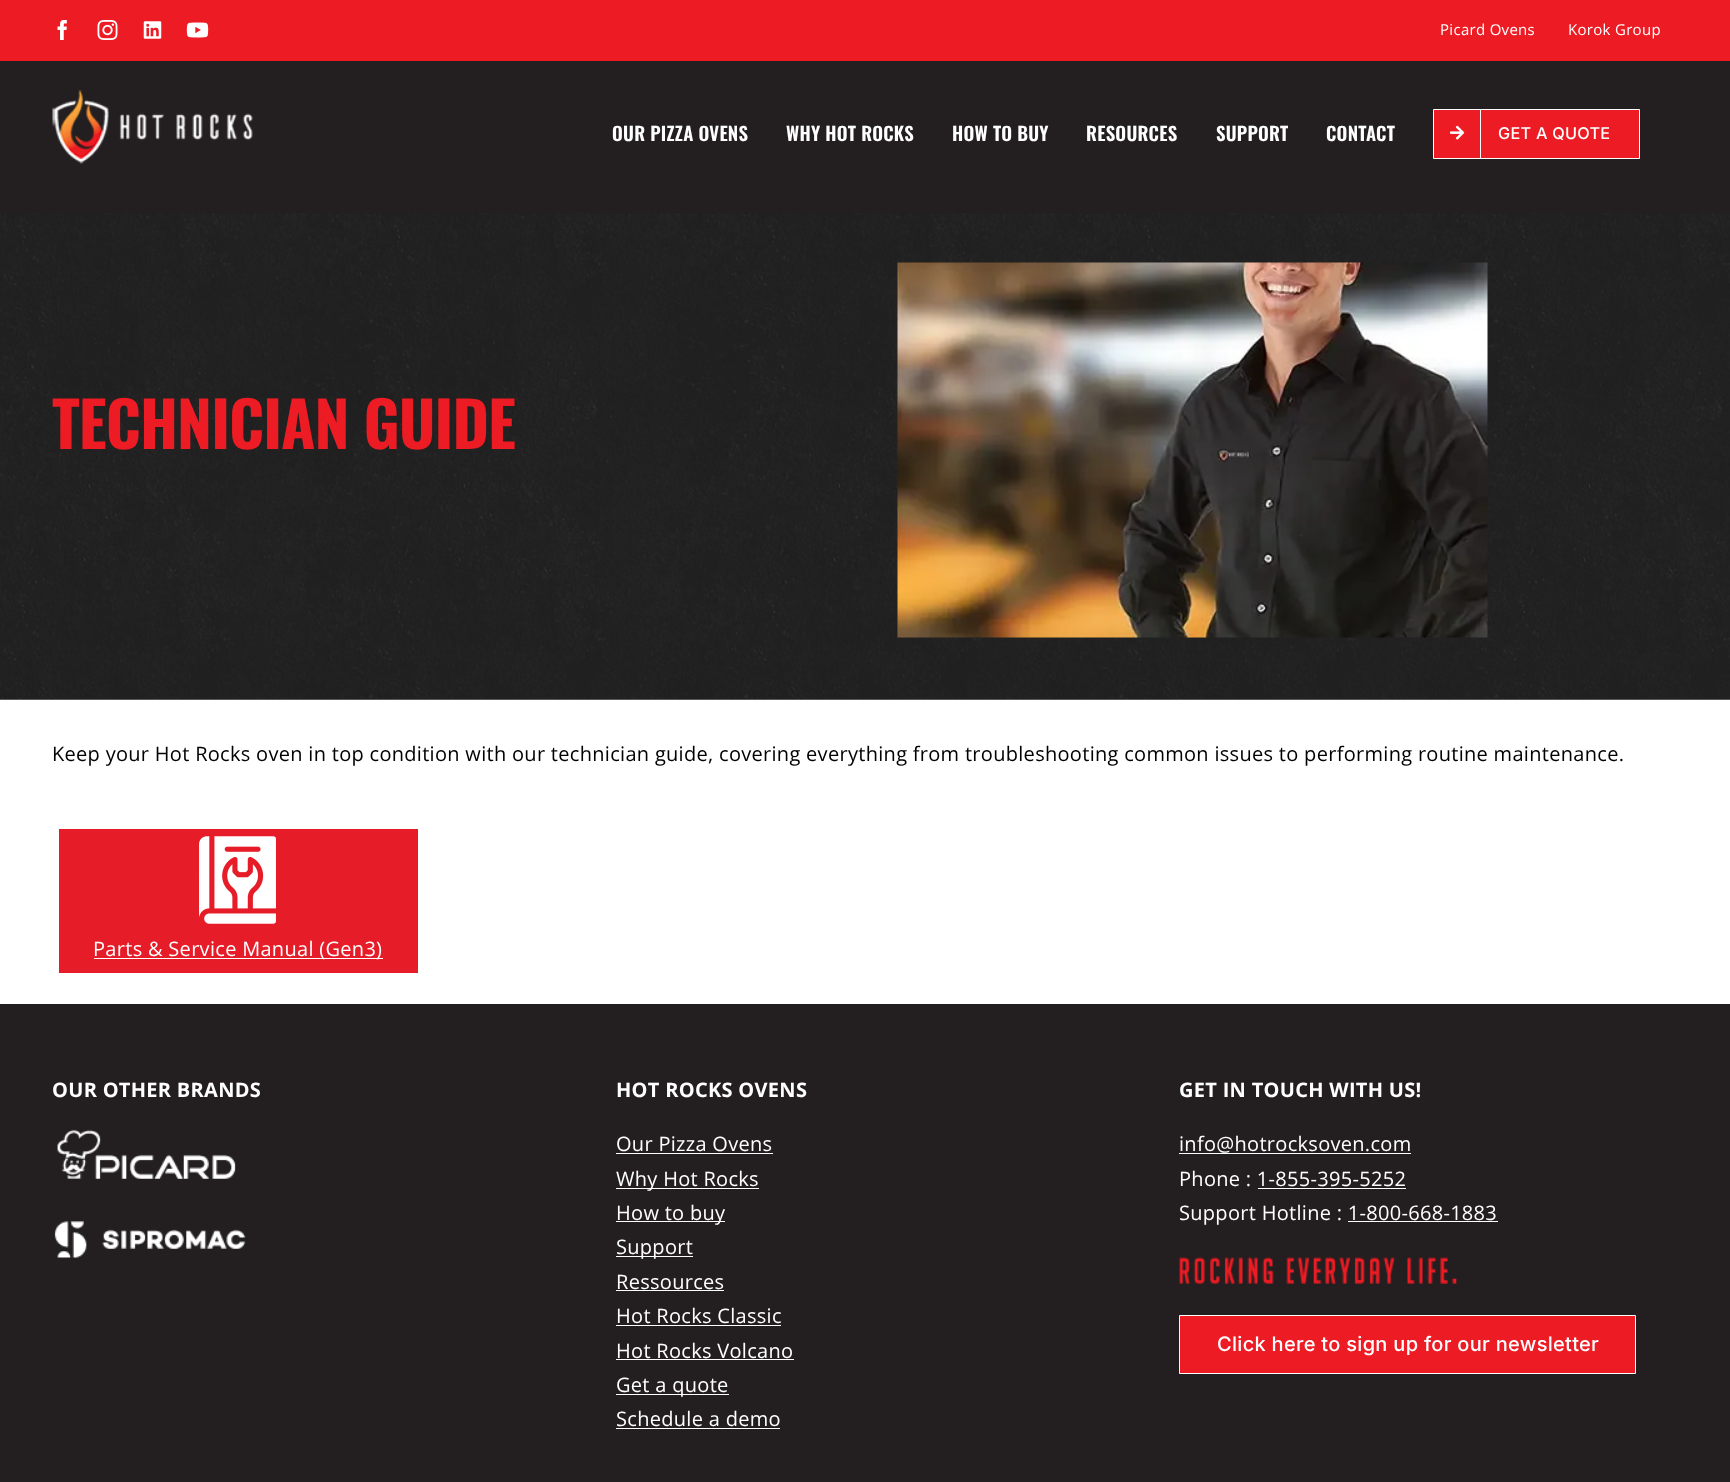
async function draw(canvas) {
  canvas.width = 1730;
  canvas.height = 1482;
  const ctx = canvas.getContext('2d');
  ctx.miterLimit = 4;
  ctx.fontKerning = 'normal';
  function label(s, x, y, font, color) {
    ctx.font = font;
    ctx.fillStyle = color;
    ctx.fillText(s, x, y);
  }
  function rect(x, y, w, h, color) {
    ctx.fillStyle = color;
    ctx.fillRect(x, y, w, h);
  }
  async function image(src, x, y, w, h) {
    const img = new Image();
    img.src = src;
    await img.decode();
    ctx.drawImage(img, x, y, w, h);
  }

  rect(0, 0, 1730, 1482, '#fff');
  rect(0, 0, 1730, 61, '#ed1c24');
  await image('assets/img1.png', 57, 20, 10, 20);
  await image('assets/img2.png', 97, 20, 21, 20);
  await image('assets/img3.png', 143, 21, 19, 18);
  await image('assets/img4.png', 186, 22, 23, 16);
  ctx.letterSpacing = '0.3px';
  label('Picard Ovens', 1440, 35, '15px Open Sans', '#fff');
  label('Korok Group', 1568, 35, '15px Open Sans', '#fff');
  rect(0, 61, 1730, 152, '#231f20');
  await image('assets/img5.png', 52, 90, 201, 74);
  ctx.letterSpacing = '0.25px';
  label('OUR PIZZA OVENS', 612, 141, '600 18.75px Oswald', '#fff');
  label('WHY HOT ROCKS', 786, 141, '600 18.75px Oswald', '#fff');
  label('HOW TO BUY', 952, 141, '600 18.75px Oswald', '#fff');
  label('RESOURCES', 1086, 141, '600 18.75px Oswald', '#fff');
  label('SUPPORT', 1216, 141, '600 18.75px Oswald', '#fff');
  label('CONTACT', 1326, 141, '600 18.75px Oswald', '#fff');
  ctx.fillStyle = '#ed1c24';
  ctx.beginPath();
  ctx.rect(1433.5, 109.5, 206, 49);
  ctx.fill();
  ctx.strokeStyle = '#fff';
  ctx.stroke();
  rect(1480, 110, 1, 48, '#fff');
  await image('assets/img6.png', 1450, 125, 15, 15);
  label('GET A QUOTE', 1498, 139, '500 16.25px Inter', '#fff');
  await image('assets/img7.png', 0, 213, 1730, 487);
  ctx.letterSpacing = '-1px';
  label('TECHNICIAN GUIDE', 52, 449, 'bold 62.5px Oswald', '#ed1c24');
  await image('assets/img8.png', 897, 262, 591, 376);
  ctx.letterSpacing = '0.3px';
  label('Keep your Hot Rocks oven in top condition with our technician guide, covering everything from troubleshooting common issues to performing routine maintenance.', 52, 761, '20px Open Sans', '#000');
  rect(59, 829, 359, 144, '#e61c28');
  await image('assets/img9.png', 199, 836, 77, 88);
  rect(94, 958, 289, 1, '#fff');
  label('Parts & Service Manual (Gen3)', 93, 956, '20px Open Sans', '#fff');
  rect(0, 1004, 1730, 478, '#231f20');
  label('OUR OTHER BRANDS', 52, 1097, 'bold 20px Open Sans', '#fff');
  await image('assets/img10.png', 57, 1129, 179, 50);
  await image('assets/img11.png', 54, 1221, 192, 37);
  label('HOT ROCKS OVENS', 616, 1097, 'bold 20px Open Sans', '#fff');
  label('Our Pizza Ovens', 616, 1151, '20px Open Sans', '#fff');
  rect(616, 1153, 157, 1, '#fff');
  rect(616, 1188, 143, 1, '#fff');
  label('Why Hot Rocks', 616, 1186, '20px Open Sans', '#fff');
  rect(616, 1221, 109, 1, '#fff');
  label('How to buy', 616, 1220, '20px Open Sans', '#fff');
  rect(616, 1256, 77, 1, '#fff');
  label('Support', 616, 1254, '20px Open Sans', '#fff');
  label('Ressources', 616, 1289, '20px Open Sans', '#fff');
  rect(616, 1290, 108, 1, '#fff');
  label('Hot Rocks Classic', 616, 1323, '20px Open Sans', '#fff');
  rect(616, 1325, 165, 1, '#fff');
  label('Hot Rocks Volcano', 616, 1358, '20px Open Sans', '#fff');
  rect(616, 1359, 178, 1, '#fff');
  rect(616, 1394, 113, 1, '#fff');
  label('Get a quote', 616, 1392, '20px Open Sans', '#fff');
  label('Schedule a demo', 616, 1426, '20px Open Sans', '#fff');
  rect(616, 1428, 164, 1, '#fff');
  label('GET IN TOUCH WITH US!', 1179, 1097, 'bold 20px Open Sans', '#fff');
  label('info@hotrocksoven.com', 1179, 1151, '20px Open Sans', '#fff');
  rect(1179, 1153, 232, 1, '#fff');
  label('Phone : 1-855-395-5252', 1179, 1186, '20px Open Sans', '#fff');
  rect(1258, 1188, 148, 1, '#fff');
  label('Support Hotline : 1-800-668-1883', 1179, 1220, '20px Open Sans', '#fff');
  rect(1348, 1221, 150, 1, '#fff');
  await image('assets/img12.png', 1179, 1257, 278, 27);
  ctx.fillStyle = '#ed1c24';
  ctx.beginPath();
  ctx.rect(1179.5, 1315.5, 456, 58);
  ctx.fill();
  ctx.stroke();
  label('Click here to sign up for our newsletter', 1217, 1351, '500 20px Inter', '#fff');
}

draw(document.querySelector('canvas'));
